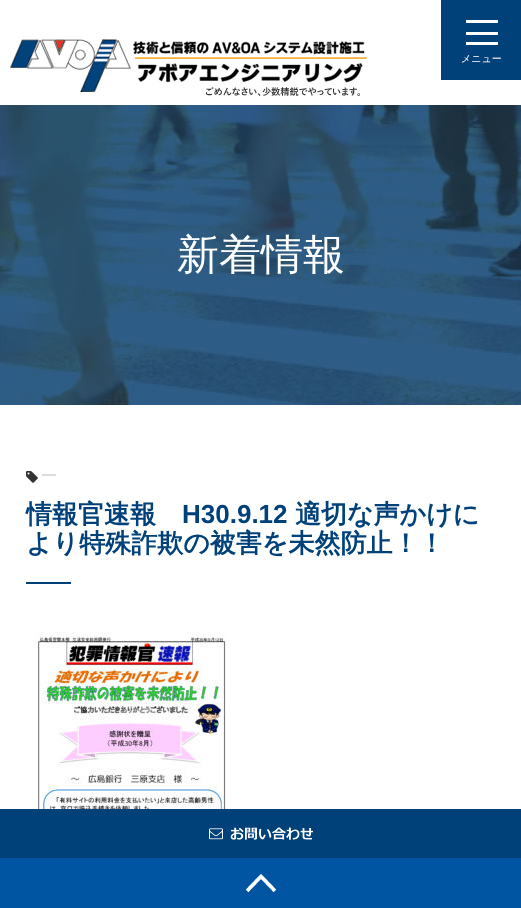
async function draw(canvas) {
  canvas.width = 521;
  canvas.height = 908;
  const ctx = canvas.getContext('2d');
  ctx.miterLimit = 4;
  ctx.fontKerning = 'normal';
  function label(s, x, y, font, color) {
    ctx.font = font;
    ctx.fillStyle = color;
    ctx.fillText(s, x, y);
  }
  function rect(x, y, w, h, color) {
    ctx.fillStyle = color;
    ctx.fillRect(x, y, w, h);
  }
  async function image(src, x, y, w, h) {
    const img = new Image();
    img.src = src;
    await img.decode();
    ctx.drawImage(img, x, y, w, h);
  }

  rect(0, 0, 521, 908, '#fff');
  await image('assets/img1.png', 10, 39, 357, 57);
  rect(441, 0, 80, 80, '#00417a');
  rect(466, 20, 32, 3, '#fff');
  rect(466, 32, 32, 3, '#fff');
  rect(466, 42, 32, 3, '#fff');
  label('メニュー', 461, 62, '500 10px WenQuanYi Zen Hei', '#fff');
  await image('assets/img2.png', 0, 105, 521, 300);
  label('新着情報', 177, 269, '500 42px WenQuanYi Zen Hei', '#fff');
  await image('assets/img3.png', 26, 471, 12, 12);
  rect(42, 474, 14, 2, '#ddd');
  label('情報官速報', 26, 523, 'bold 26px WenQuanYi Zen Hei', '#00417a');
  label('H30.9.12', 182, 523, 'bold 26px Liberation Sans', '#00417a');
  label('適切な声かけに', 295, 523, 'bold 26px WenQuanYi Zen Hei', '#00417a');
  label('より特殊詐欺の被害を未然防止！！', 26, 552, 'bold 26px WenQuanYi Zen Hei', '#00417a');
  rect(26, 582, 45, 2, '#00417a');
  await image('assets/img4.png', 34, 632, 192, 177);
  rect(0, 809, 521, 49, '#00417a');
  await image('assets/img5.png', 209, 827, 104, 13);
  rect(0, 858, 521, 50, '#0055a2');
  await image('assets/img6.png', 246, 874, 30, 18);
}

draw(document.querySelector('canvas'));
